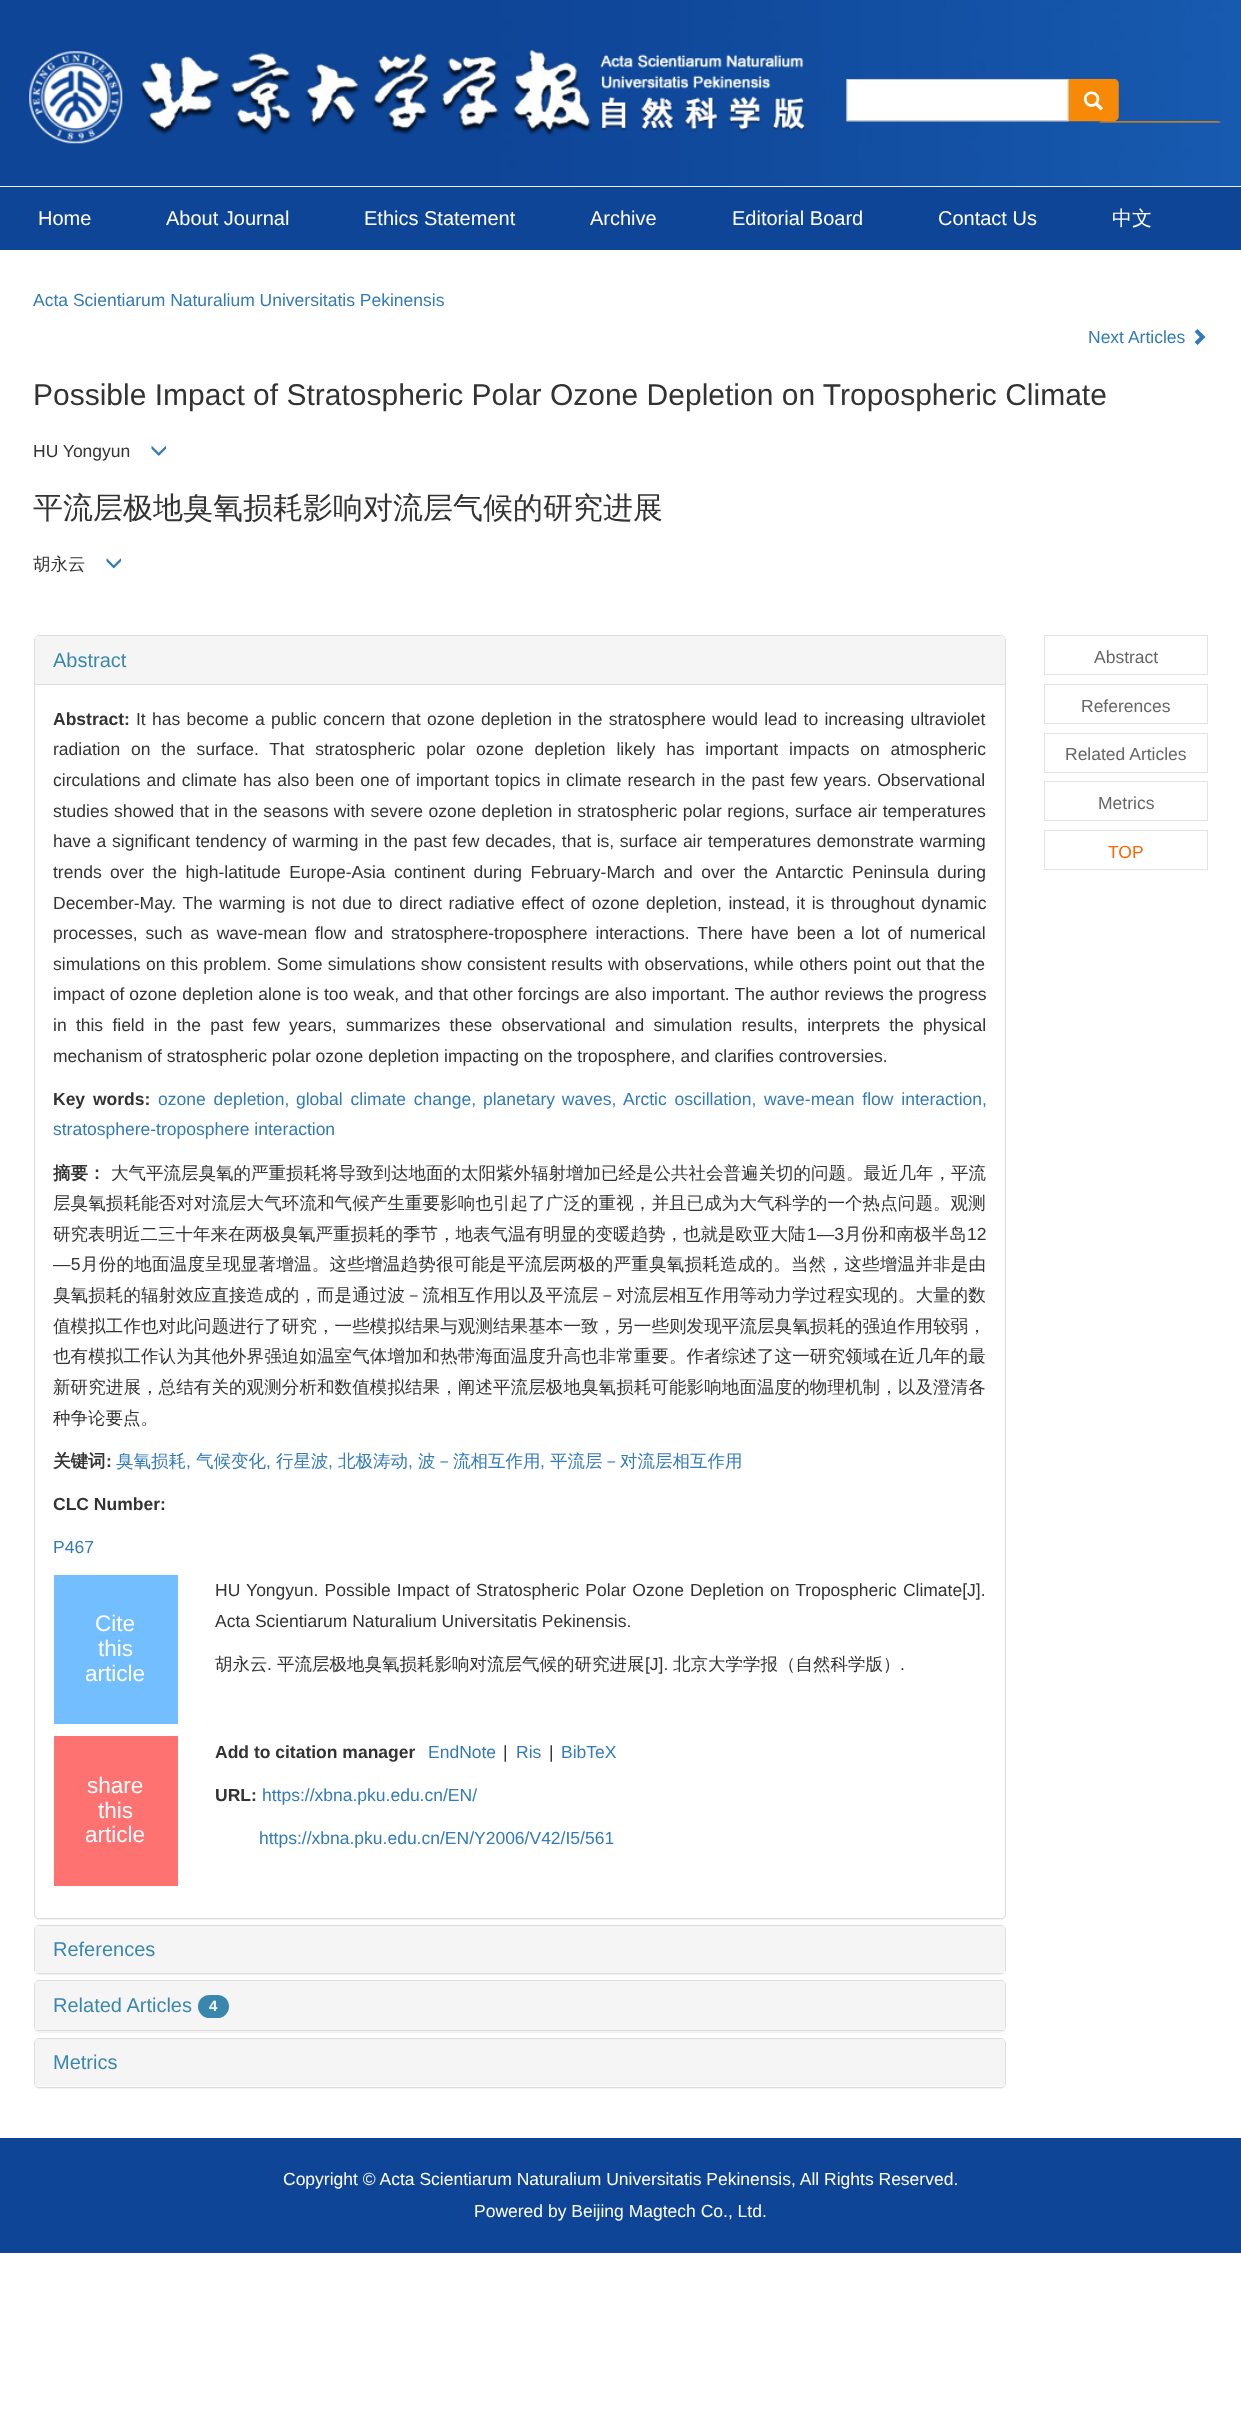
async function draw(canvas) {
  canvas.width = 1241;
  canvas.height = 2430;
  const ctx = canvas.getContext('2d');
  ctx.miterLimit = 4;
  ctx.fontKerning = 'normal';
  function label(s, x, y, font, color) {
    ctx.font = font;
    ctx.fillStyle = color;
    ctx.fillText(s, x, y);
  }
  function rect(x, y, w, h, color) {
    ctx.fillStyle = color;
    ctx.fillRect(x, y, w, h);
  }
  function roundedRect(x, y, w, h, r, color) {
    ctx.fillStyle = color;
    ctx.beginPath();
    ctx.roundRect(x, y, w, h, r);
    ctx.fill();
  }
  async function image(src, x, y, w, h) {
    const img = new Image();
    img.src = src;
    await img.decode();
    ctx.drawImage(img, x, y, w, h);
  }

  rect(0, 0, 1241, 2430, '#fff');
  await image('assets/img1.png', 0, 0, 1241, 186);
  await image('assets/img2.png', 29, 50, 777, 94);
  await image('assets/img3.png', 846, 78, 375, 45);
  rect(0, 187, 1241, 63, '#0e4597');
  rect(0, 186, 1241, 1, '#ebf0f3');
  label('Home', 38, 225, '20px Liberation Sans', '#fff');
  label('About Journal', 166, 225, '20px Liberation Sans', '#fff');
  label('Ethics Statement', 364, 225, '20px Liberation Sans', '#fff');
  label('Archive', 590, 225, '20px Liberation Sans', '#fff');
  label('Editorial Board', 732, 225, '20px Liberation Sans', '#fff');
  label('Contact Us', 938, 225, '20px Liberation Sans', '#fff');
  label('中文', 1112, 225, '500 20px WenQuanYi Zen Hei', '#fff');
  label('Acta Scientiarum Naturalium Universitatis Pekinensis', 33, 306, '17.5px Liberation Sans', '#337ab7');
  label('Next Articles', 1088, 343, '17.5px Liberation Sans', '#337ab7');
  await image('assets/img4.png', 1194, 329, 12, 16);
  label('Possible Impact of Stratospheric Polar Ozone Depletion on Tropospheric Climate', 33, 405, '30px Liberation Sans', '#333');
  label('HU Yongyun', 33, 457, '17.5px Liberation Sans', '#333');
  await image('assets/img5.png', 151, 445, 15, 11);
  label('平流层极地臭氧损耗影响对流层气候的研究进展', 33, 518, '500 30px WenQuanYi Zen Hei', '#333');
  label('胡永云', 33, 570, '500 17.5px WenQuanYi Zen Hei', '#333');
  await image('assets/img6.png', 106, 558, 15, 11);
  ctx.fillStyle = '#0000000d';
  ctx.filter = 'blur(0.5px)';
  ctx.beginPath();
  ctx.roundRect(34, 636, 972, 1284, 5);
  ctx.fill();
  ctx.filter = 'none';
  ctx.fillStyle = '#fff';
  ctx.beginPath();
  ctx.roundRect(34.5, 635.5, 971, 1283, 4.5);
  ctx.fill();
  ctx.strokeStyle = '#ddd';
  ctx.stroke();
  ctx.fillStyle = '#f5f5f5';
  ctx.beginPath();
  ctx.roundRect(35, 636, 970, 48, [4, 4, 0, 0]);
  ctx.fill();
  label('Abstract', 53, 667, '20px Liberation Sans', '#3a87ad');
  rect(35, 684, 970, 1, '#ddd');
  label('Abstract:', 53, 725, 'bold 17.5px Liberation Sans', '#333');
  ctx.wordSpacing = '1.4px';
  label('It has become a public concern that ozone depletion in the stratosphere would lead to increasing ultraviolet', 136, 725, '17.5px Liberation Sans', '#333');
  ctx.wordSpacing = '6px';
  label('radiation on the surface. That stratospheric polar ozone depletion likely has important impacts on atmospheric', 53, 755, '17.5px Liberation Sans', '#333');
  ctx.wordSpacing = '1.1px';
  label('circulations and climate has also been one of important topics in climate research in the past few years. Observational', 53, 786, '17.5px Liberation Sans', '#333');
  ctx.wordSpacing = '0.6px';
  label('studies showed that in the seasons with severe ozone depletion in stratospheric polar regions, surface air temperatures', 53, 817, '17.5px Liberation Sans', '#333');
  ctx.wordSpacing = '0.8px';
  label('have a significant tendency of warming in the past few decades, that is, surface air temperatures demonstrate warming', 53, 847, '17.5px Liberation Sans', '#333');
  ctx.wordSpacing = '3.6px';
  label('trends over the high-latitude Europe-Asia continent during February-March and over the Antarctic Peninsula during', 53, 878, '17.5px Liberation Sans', '#333');
  ctx.wordSpacing = '1.75px';
  label('December-May. The warming is not due to direct radiative effect of ozone depletion, instead, it is throughout dynamic', 53, 909, '17.5px Liberation Sans', '#333');
  ctx.wordSpacing = '3px';
  label('processes, such as wave-mean flow and stratosphere-troposphere interactions. There have been a lot of numerical', 53, 939, '17.5px Liberation Sans', '#333');
  ctx.wordSpacing = '0.5px';
  label('simulations on this problem. Some simulations show consistent results with observations, while others point out that the', 53, 970, '17.5px Liberation Sans', '#333');
  ctx.wordSpacing = '0.25px';
  label('impact of ozone depletion alone is too weak, and that other forcings are also important. The author reviews the progress', 53, 1000, '17.5px Liberation Sans', '#333');
  ctx.wordSpacing = '4.4px';
  label('in this field in the past few years, summarizes these observational and simulation results, interprets the physical', 53, 1031, '17.5px Liberation Sans', '#333');
  ctx.wordSpacing = '0px';
  label('mechanism of stratospheric polar ozone depletion impacting on the troposphere, and clarifies controversies.', 53, 1062, '17.5px Liberation Sans', '#333');
  ctx.wordSpacing = '3px';
  label('Key words:', 53, 1105, 'bold 17.5px Liberation Sans', '#333');
  label('ozone depletion,', 158, 1105, '17.5px Liberation Sans', '#337ab7');
  label('global climate change,', 296, 1105, '17.5px Liberation Sans', '#337ab7');
  ctx.wordSpacing = '2px';
  label('planetary waves,', 483, 1105, '17.5px Liberation Sans', '#337ab7');
  ctx.wordSpacing = '3px';
  label('Arctic oscillation,', 623, 1105, '17.5px Liberation Sans', '#337ab7');
  label('wave-mean flow interaction,', 764, 1105, '17.5px Liberation Sans', '#337ab7');
  ctx.wordSpacing = '0px';
  label('stratosphere-troposphere interaction', 53, 1135, '17.5px Liberation Sans', '#337ab7');
  label('摘要：', 53, 1179, 'bold 17.5px WenQuanYi Zen Hei', '#333');
  label('大气平流层臭氧的严重损耗将导致到达地面的太阳紫外辐射增加已经是公共社会普遍关切的问题。最近几年，平流', 111, 1179, '500 17.5px WenQuanYi Zen Hei', '#333');
  ctx.letterSpacing = '0.1px';
  label('层臭氧损耗能否对对流层大气环流和气候产生重要影响也引起了广泛的重视，并且已成为大气科学的一个热点问题。观测', 53, 1209, '500 17.5px WenQuanYi Zen Hei', '#333');
  ctx.letterSpacing = '0px';
  label('研究表明近二三十年来在两极臭氧严重损耗的季节，地表气温有明显的变暖趋势，也就是欧亚大陆', 53, 1240, '500 17.5px WenQuanYi Zen Hei', '#333');
  label('1—3', 807, 1240, '17.5px Liberation Sans', '#333');
  label('月份和南极半岛', 844, 1240, '500 17.5px WenQuanYi Zen Hei', '#333');
  label('12', 967, 1240, '17.5px Liberation Sans', '#333');
  ctx.letterSpacing = '0.25px';
  label('—5', 53, 1270, '17.5px Liberation Sans', '#333');
  label('月份的地面温度呈现显著增温。这些增温趋势很可能是平流层两极的严重臭氧损耗造成的。当然，这些增温并非是由', 81, 1270, '500 17.5px WenQuanYi Zen Hei', '#333');
  ctx.letterSpacing = '0.1px';
  label('臭氧损耗的辐射效应直接造成的，而是通过波－流相互作用以及平流层－对流层相互作用等动力学过程实现的。大量的数', 53, 1301, '500 17.5px WenQuanYi Zen Hei', '#333');
  label('值模拟工作也对此问题进行了研究，一些模拟结果与观测结果基本一致，另一些则发现平流层臭氧损耗的强迫作用较弱，', 53, 1332, '500 17.5px WenQuanYi Zen Hei', '#333');
  label('也有模拟工作认为其他外界强迫如温室气体增加和热带海面温度升高也非常重要。作者综述了这一研究领域在近几年的最', 53, 1362, '500 17.5px WenQuanYi Zen Hei', '#333');
  label('新研究进展，总结有关的观测分析和数值模拟结果，阐述平流层极地臭氧损耗可能影响地面温度的物理机制，以及澄清各', 53, 1393, '500 17.5px WenQuanYi Zen Hei', '#333');
  ctx.letterSpacing = '0px';
  label('种争论要点。', 53, 1424, '500 17.5px WenQuanYi Zen Hei', '#333');
  label('关键词', 53, 1467, 'bold 17.5px WenQuanYi Zen Hei', '#333');
  label(':', 106, 1467, 'bold 17.5px Liberation Sans', '#333');
  label('臭氧损耗', 116, 1467, '500 17.5px WenQuanYi Zen Hei', '#337ab7');
  label('气候变化', 196, 1467, '500 17.5px WenQuanYi Zen Hei', '#337ab7');
  label('行星波', 276, 1467, '500 17.5px WenQuanYi Zen Hei', '#337ab7');
  label('北极涛动', 338, 1467, '500 17.5px WenQuanYi Zen Hei', '#337ab7');
  label('波－流相互作用', 418, 1467, '500 17.5px WenQuanYi Zen Hei', '#337ab7');
  label('平流层－对流层相互作用', 550, 1467, '500 17.5px WenQuanYi Zen Hei', '#337ab7');
  label(',', 186, 1467, '17.5px Liberation Sans', '#337ab7');
  label(',', 266, 1467, '17.5px Liberation Sans', '#337ab7');
  label(',', 328, 1467, '17.5px Liberation Sans', '#337ab7');
  label(',', 408, 1467, '17.5px Liberation Sans', '#337ab7');
  label(',', 540, 1467, '17.5px Liberation Sans', '#337ab7');
  label('CLC Number:', 53, 1510, 'bold 17.5px Liberation Sans', '#333');
  label('P467', 53, 1553, '17.5px Liberation Sans', '#337ab7');
  rect(54, 1575, 124, 149, '#72beff');
  label('Cite', 95, 1631, '22.5px Liberation Sans', '#fff');
  label('this', 98, 1656, '22.5px Liberation Sans', '#fff');
  label('article', 85, 1681, '22.5px Liberation Sans', '#fff');
  ctx.wordSpacing = '1.25px';
  label('HU Yongyun. Possible Impact of Stratospheric Polar Ozone Depletion on Tropospheric Climate[J].', 215, 1596, '17.5px Liberation Sans', '#333');
  ctx.wordSpacing = '0px';
  label('Acta Scientiarum Naturalium Universitatis Pekinensis.', 215, 1627, '17.5px Liberation Sans', '#333');
  label('胡永云', 215, 1670, '500 17.5px WenQuanYi Zen Hei', '#333');
  label('.', 267, 1670, '17.5px Liberation Sans', '#333');
  label('平流层极地臭氧损耗影响对流层气候的研究进展', 277, 1670, '500 17.5px WenQuanYi Zen Hei', '#333');
  label('[J].', 645, 1670, '17.5px Liberation Sans', '#333');
  label('北京大学学报（自然科学版）', 673, 1670, '500 17.5px WenQuanYi Zen Hei', '#333');
  label('.', 900, 1670, '17.5px Liberation Sans', '#333');
  rect(54, 1736, 124, 150, '#ff7272');
  label('share', 87, 1793, '22.5px Liberation Sans', '#fff');
  label('this', 98, 1818, '22.5px Liberation Sans', '#fff');
  label('article', 85, 1842, '22.5px Liberation Sans', '#fff');
  label('Add to citation manager', 215, 1758, 'bold 17.5px Liberation Sans', '#333');
  label('EndNote', 428, 1758, '17.5px Liberation Sans', '#337ab7');
  label('|', 503, 1758, '17.5px Liberation Sans', '#333');
  label('Ris', 516, 1758, '17.5px Liberation Sans', '#337ab7');
  label('|', 549, 1758, '17.5px Liberation Sans', '#333');
  label('BibTeX', 561, 1758, '17.5px Liberation Sans', '#337ab7');
  label('URL:', 215, 1801, 'bold 17.5px Liberation Sans', '#333');
  label('https://xbna.pku.edu.cn/EN/', 262, 1801, '17.5px Liberation Sans', '#337ab7');
  label('https://xbna.pku.edu.cn/EN/Y2006/V42/I5/561', 259, 1844, '17.5px Liberation Sans', '#337ab7');
  ctx.fillStyle = '#0000000d';
  ctx.filter = 'blur(0.5px)';
  ctx.beginPath();
  ctx.roundRect(34, 1926, 972, 49, 5);
  ctx.fill();
  ctx.filter = 'none';
  ctx.beginPath();
  ctx.roundRect(34.5, 1925.5, 971, 48, 4.5);
  ctx.stroke();
  ctx.fillStyle = '#f5f5f5';
  ctx.beginPath();
  ctx.roundRect(35, 1926, 970, 47, [4, 4, 0, 0]);
  ctx.fill();
  label('References', 53, 1956, '20px Liberation Sans', '#3a87ad');
  ctx.fillStyle = '#0000000d';
  ctx.filter = 'blur(0.5px)';
  ctx.beginPath();
  ctx.roundRect(34, 1981, 972, 52, 5);
  ctx.fill();
  ctx.filter = 'none';
  ctx.beginPath();
  ctx.roundRect(34.5, 1980.5, 971, 50, 4.5);
  ctx.stroke();
  ctx.fillStyle = '#f5f5f5';
  ctx.beginPath();
  ctx.roundRect(35, 1981, 970, 49, [4, 4, 0, 0]);
  ctx.fill();
  label('Related Articles', 53, 2012, '20px Liberation Sans', '#3a87ad');
  roundedRect(198, 1995, 31, 23, 11.5, '#3a87ad');
  label('4', 209, 2011, 'bold 15px Liberation Sans', '#f5f5f5');
  ctx.fillStyle = '#0000000d';
  ctx.filter = 'blur(0.5px)';
  ctx.beginPath();
  ctx.roundRect(34, 2039, 972, 50, 5);
  ctx.fill();
  ctx.filter = 'none';
  ctx.fillStyle = '#fff';
  ctx.beginPath();
  ctx.roundRect(34.5, 2038.5, 971, 49, 4.5);
  ctx.fill();
  ctx.stroke();
  ctx.fillStyle = '#f5f5f5';
  ctx.beginPath();
  ctx.roundRect(35, 2039, 970, 47, [4, 4, 0, 0]);
  ctx.fill();
  label('Metrics', 53, 2069, '20px Liberation Sans', '#3a87ad');
  ctx.strokeStyle = '#e3e3e3';
  ctx.strokeRect(1044.5, 635.5, 163, 39);
  label('Abstract', 1094, 663, '17.5px Liberation Sans', '#666');
  ctx.strokeRect(1044.5, 684.5, 163, 39);
  label('References', 1081, 712, '17.5px Liberation Sans', '#666');
  ctx.strokeRect(1044.5, 733.5, 163, 39);
  label('Related Articles', 1065, 760, '17.5px Liberation Sans', '#666');
  ctx.strokeRect(1044.5, 781.5, 163, 39);
  label('Metrics', 1098, 809, '17.5px Liberation Sans', '#666');
  ctx.strokeRect(1044.5, 830.5, 163, 39);
  label('TOP', 1108, 858, '17.5px Liberation Sans', '#f60');
  rect(0, 2138, 1241, 115, '#0e4597');
  label('Copyright © Acta Scientiarum Naturalium Universitatis Pekinensis, All Rights Reserved.', 283, 2185, '17.5px Liberation Sans', '#fff');
  label('Powered by Beijing Magtech Co., Ltd.', 474, 2217, '17.5px Liberation Sans', '#fff');
}

draw(document.querySelector('canvas'));
